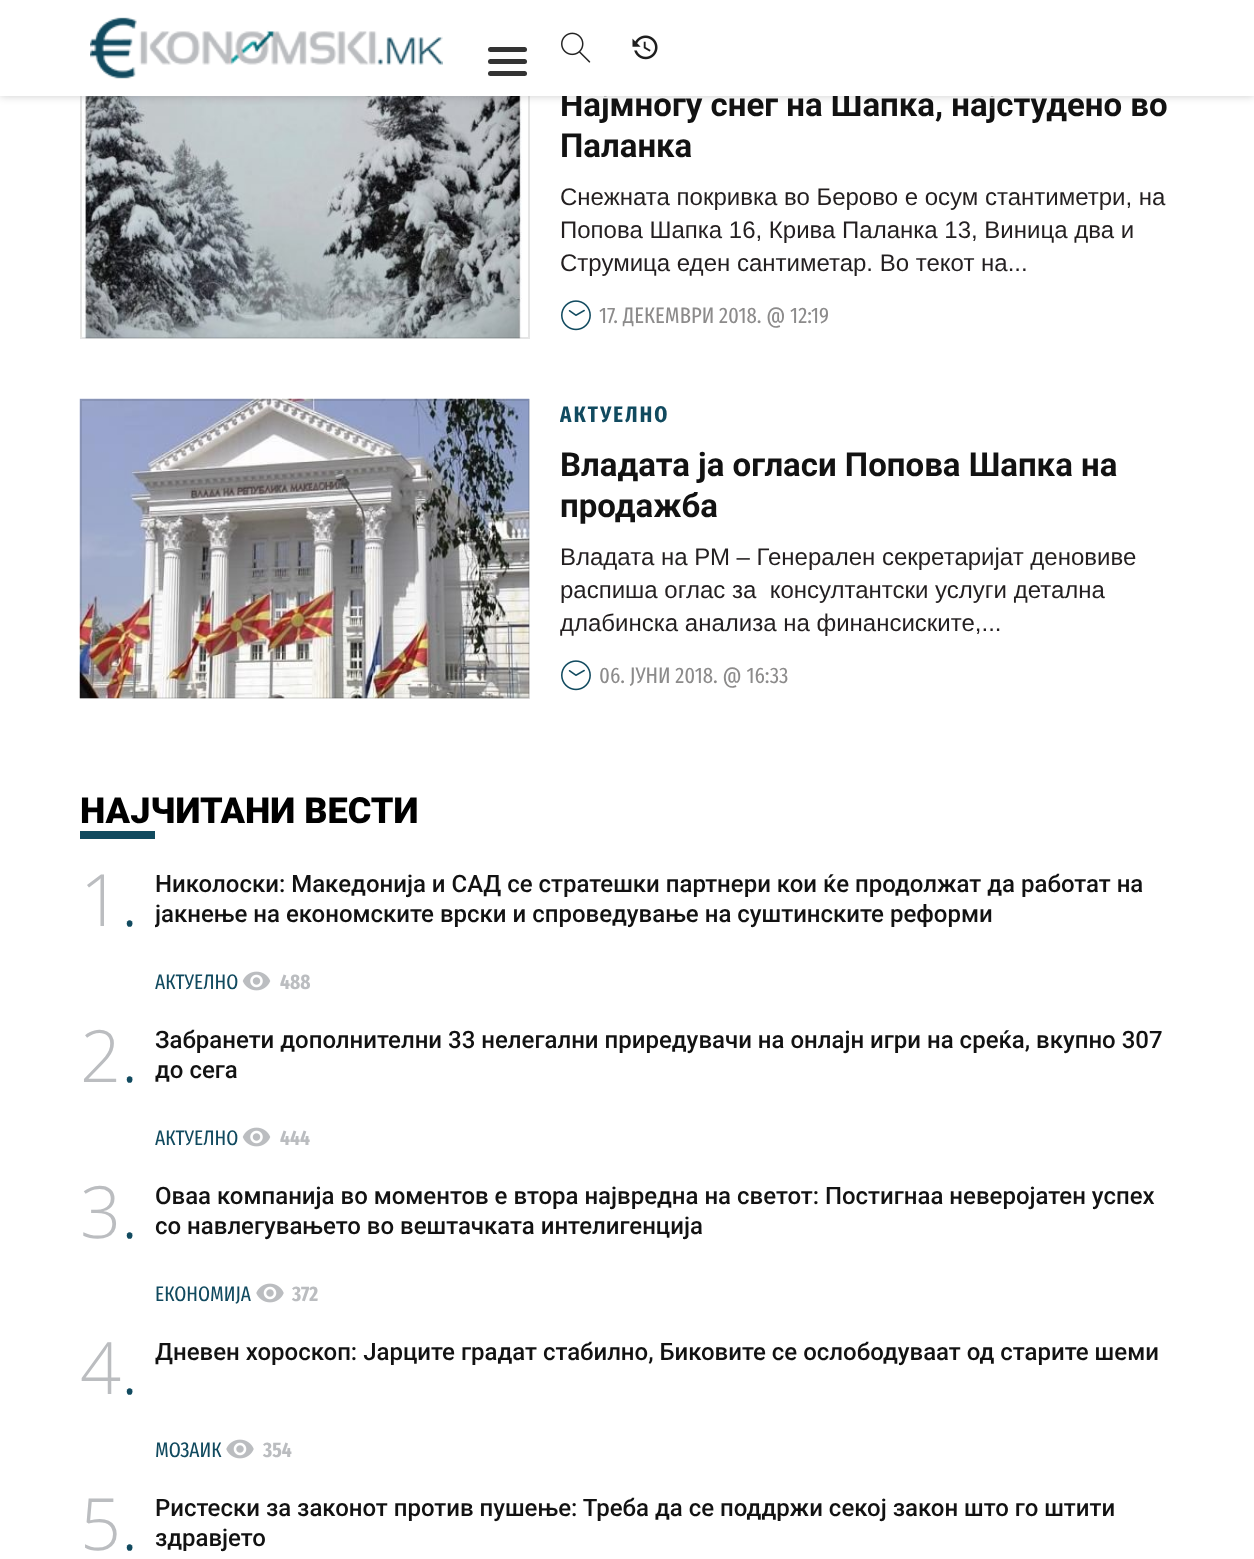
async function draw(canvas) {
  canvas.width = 1254;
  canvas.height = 1559;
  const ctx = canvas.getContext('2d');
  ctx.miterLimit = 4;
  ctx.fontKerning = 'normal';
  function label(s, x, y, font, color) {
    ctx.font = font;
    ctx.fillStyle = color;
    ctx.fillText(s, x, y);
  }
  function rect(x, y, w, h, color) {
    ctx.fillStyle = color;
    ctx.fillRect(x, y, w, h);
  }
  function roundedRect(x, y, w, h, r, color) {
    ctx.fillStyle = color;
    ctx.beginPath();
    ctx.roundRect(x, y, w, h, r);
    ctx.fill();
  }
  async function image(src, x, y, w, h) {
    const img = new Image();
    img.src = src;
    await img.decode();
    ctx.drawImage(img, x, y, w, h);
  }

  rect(0, 0, 1254, 1559, '#fff');
  await image('assets/img4.png', 80, 96, 442, 243);
  ctx.strokeStyle = '#0000001a';
  ctx.lineWidth = 2;
  ctx.strokeRect(81, 40, 448, 298);
  ctx.fillStyle = '#00000033';
  ctx.filter = 'blur(4px)';
  ctx.beginPath();
  ctx.rect(0, 0, 1254, 96);
  ctx.fill();
  ctx.filter = 'none';
  label('Најмногу снег на Шапка, најстудено во', 560, 116, 'bold 33px Roboto', '#121212');
  rect(0, 0, 1254, 96, '#fff');
  await image('assets/img1.png', 90, 17, 353, 62);
  roundedRect(488, 47, 39, 5, 2.5, '#333');
  roundedRect(488, 59, 39, 5, 2.5, '#333');
  roundedRect(488, 71, 39, 5, 2.5, '#333');
  await image('assets/img2.png', 561, 32, 30, 31);
  await image('assets/img3.png', 632, 35, 26, 25);
  label('Паланка', 560, 157, 'bold 33px Roboto', '#121212');
  label('Снежната покривка во Берово е осум стантиметри, на', 560, 205, '24px Liberation Sans', '#231f20');
  label('Попова Шапка 16, Крива Паланка 13, Виница два и', 560, 238, '24px Liberation Sans', '#231f20');
  label('Струмица еден сантиметар. Во текот на...', 560, 271, '24px Liberation Sans', '#231f20');
  await image('assets/img5.png', 561, 300, 30, 31);
  label('17. ДЕКЕМВРИ 2018. @ 12:19', 599, 323, '22.5px Fira Sans Extra Condensed', '#8c8b8b');
  await image('assets/img6.png', 79, 398, 451, 301);
  ctx.strokeRect(81, 400, 448, 298);
  ctx.save();
  ctx.beginPath();
  ctx.rect(560, 399, 615, 30);
  ctx.clip();
  ctx.letterSpacing = '2.25px';
  label('АКТУЕЛНО', 560, 422, 'bold 22.5px Fira Sans Extra Condensed', '#114a5f');
  ctx.restore();
  label('Владата ја огласи Попова Шапка на', 560, 476, 'bold 33px Roboto', '#121212');
  label('продажба', 560, 517, 'bold 33px Roboto', '#121212');
  label('Владата на РМ – Генерален секретаријат деновиве', 560, 565, '24px Liberation Sans', '#231f20');
  label('распиша оглас за  консултантски услуги детална', 560, 598, '24px Liberation Sans', '#231f20');
  label('длабинска анализа на финансиските,...', 560, 631, '24px Liberation Sans', '#231f20');
  await image('assets/img5.png', 561, 660, 30, 31);
  label('06. ЈУНИ 2018. @ 16:33', 599, 683, '22.5px Fira Sans Extra Condensed', '#8c8b8b');
  label('НАЈЧИТАНИ ВЕСТИ', 80, 823, '900 36px Roboto', '#000');
  rect(80, 831, 75, 8, '#114a5f');
  label('1', 80, 926, '300 72px Open Sans', '#bbbdc0');
  label('.', 121, 926, '300 72px Open Sans', '#114a5f');
  label('Николоски: Македонија и САД се стратешки партнери кои ќе продолжат да работат на', 155, 892, '500 24px Roboto', '#121212');
  ctx.save();
  ctx.beginPath();
  ctx.rect(155, 869, 1020, 90);
  ctx.clip();
  label('јакнење на економските врски и спроведување на суштинските реформи', 155, 922, '500 24px Roboto', '#121212');
  ctx.restore();
  label('АКТУЕЛНО', 155, 989, '21px Fira Sans Extra Condensed', '#114a5f');
  await image('assets/img7.png', 242, 971, 29, 20);
  label('488', 280, 989, 'bold 21px Fira Sans Extra Condensed', '#bbbdc0');
  label('2', 80, 1082, '300 72px Open Sans', '#bbbdc0');
  label('.', 121, 1082, '300 72px Open Sans', '#114a5f');
  label('Забранети дополнителни 33 нелегални приредувачи на онлајн игри на среќа, вкупно 307', 155, 1048, '500 24px Roboto', '#121212');
  label('до сега', 155, 1078, '500 24px Roboto', '#121212');
  label('АКТУЕЛНО', 155, 1145, '21px Fira Sans Extra Condensed', '#114a5f');
  await image('assets/img7.png', 242, 1127, 29, 20);
  label('444', 280, 1145, 'bold 21px Fira Sans Extra Condensed', '#bbbdc0');
  label('3', 80, 1238, '300 72px Open Sans', '#bbbdc0');
  label('.', 121, 1238, '300 72px Open Sans', '#114a5f');
  label('Оваа компанија во моментов е втора највредна на светот: Постигнаа неверојатен успех', 155, 1204, '500 24px Roboto', '#121212');
  label('со навлегувањето во вештачката интелигенција', 155, 1234, '500 24px Roboto', '#121212');
  label('ЕКОНОМИЈА', 155, 1301, '21px Fira Sans Extra Condensed', '#114a5f');
  await image('assets/img8.png', 256, 1283, 28, 20);
  label('372', 292, 1301, 'bold 21px Fira Sans Extra Condensed', '#bbbdc0');
  label('4', 80, 1394, '300 72px Open Sans', '#bbbdc0');
  label('.', 121, 1394, '300 72px Open Sans', '#114a5f');
  label('Дневен хороскоп: Јарците градат стабилно, Биковите се ослободуваат од старите шеми', 155, 1360, '500 24px Roboto', '#121212');
  label('МОЗАИК', 155, 1457, '21px Fira Sans Extra Condensed', '#114a5f');
  await image('assets/img8.png', 226, 1439, 28, 20);
  label('354', 263, 1457, 'bold 21px Fira Sans Extra Condensed', '#bbbdc0');
  label('5', 80, 1550, '300 72px Open Sans', '#bbbdc0');
  label('.', 121, 1550, '300 72px Open Sans', '#114a5f');
  label('Ристески за законот против пушење: Треба да се поддржи секој закон што го штити', 155, 1516, '500 24px Roboto', '#121212');
  label('здравјето', 155, 1546, '500 24px Roboto', '#121212');
}

draw(document.querySelector('canvas'));
